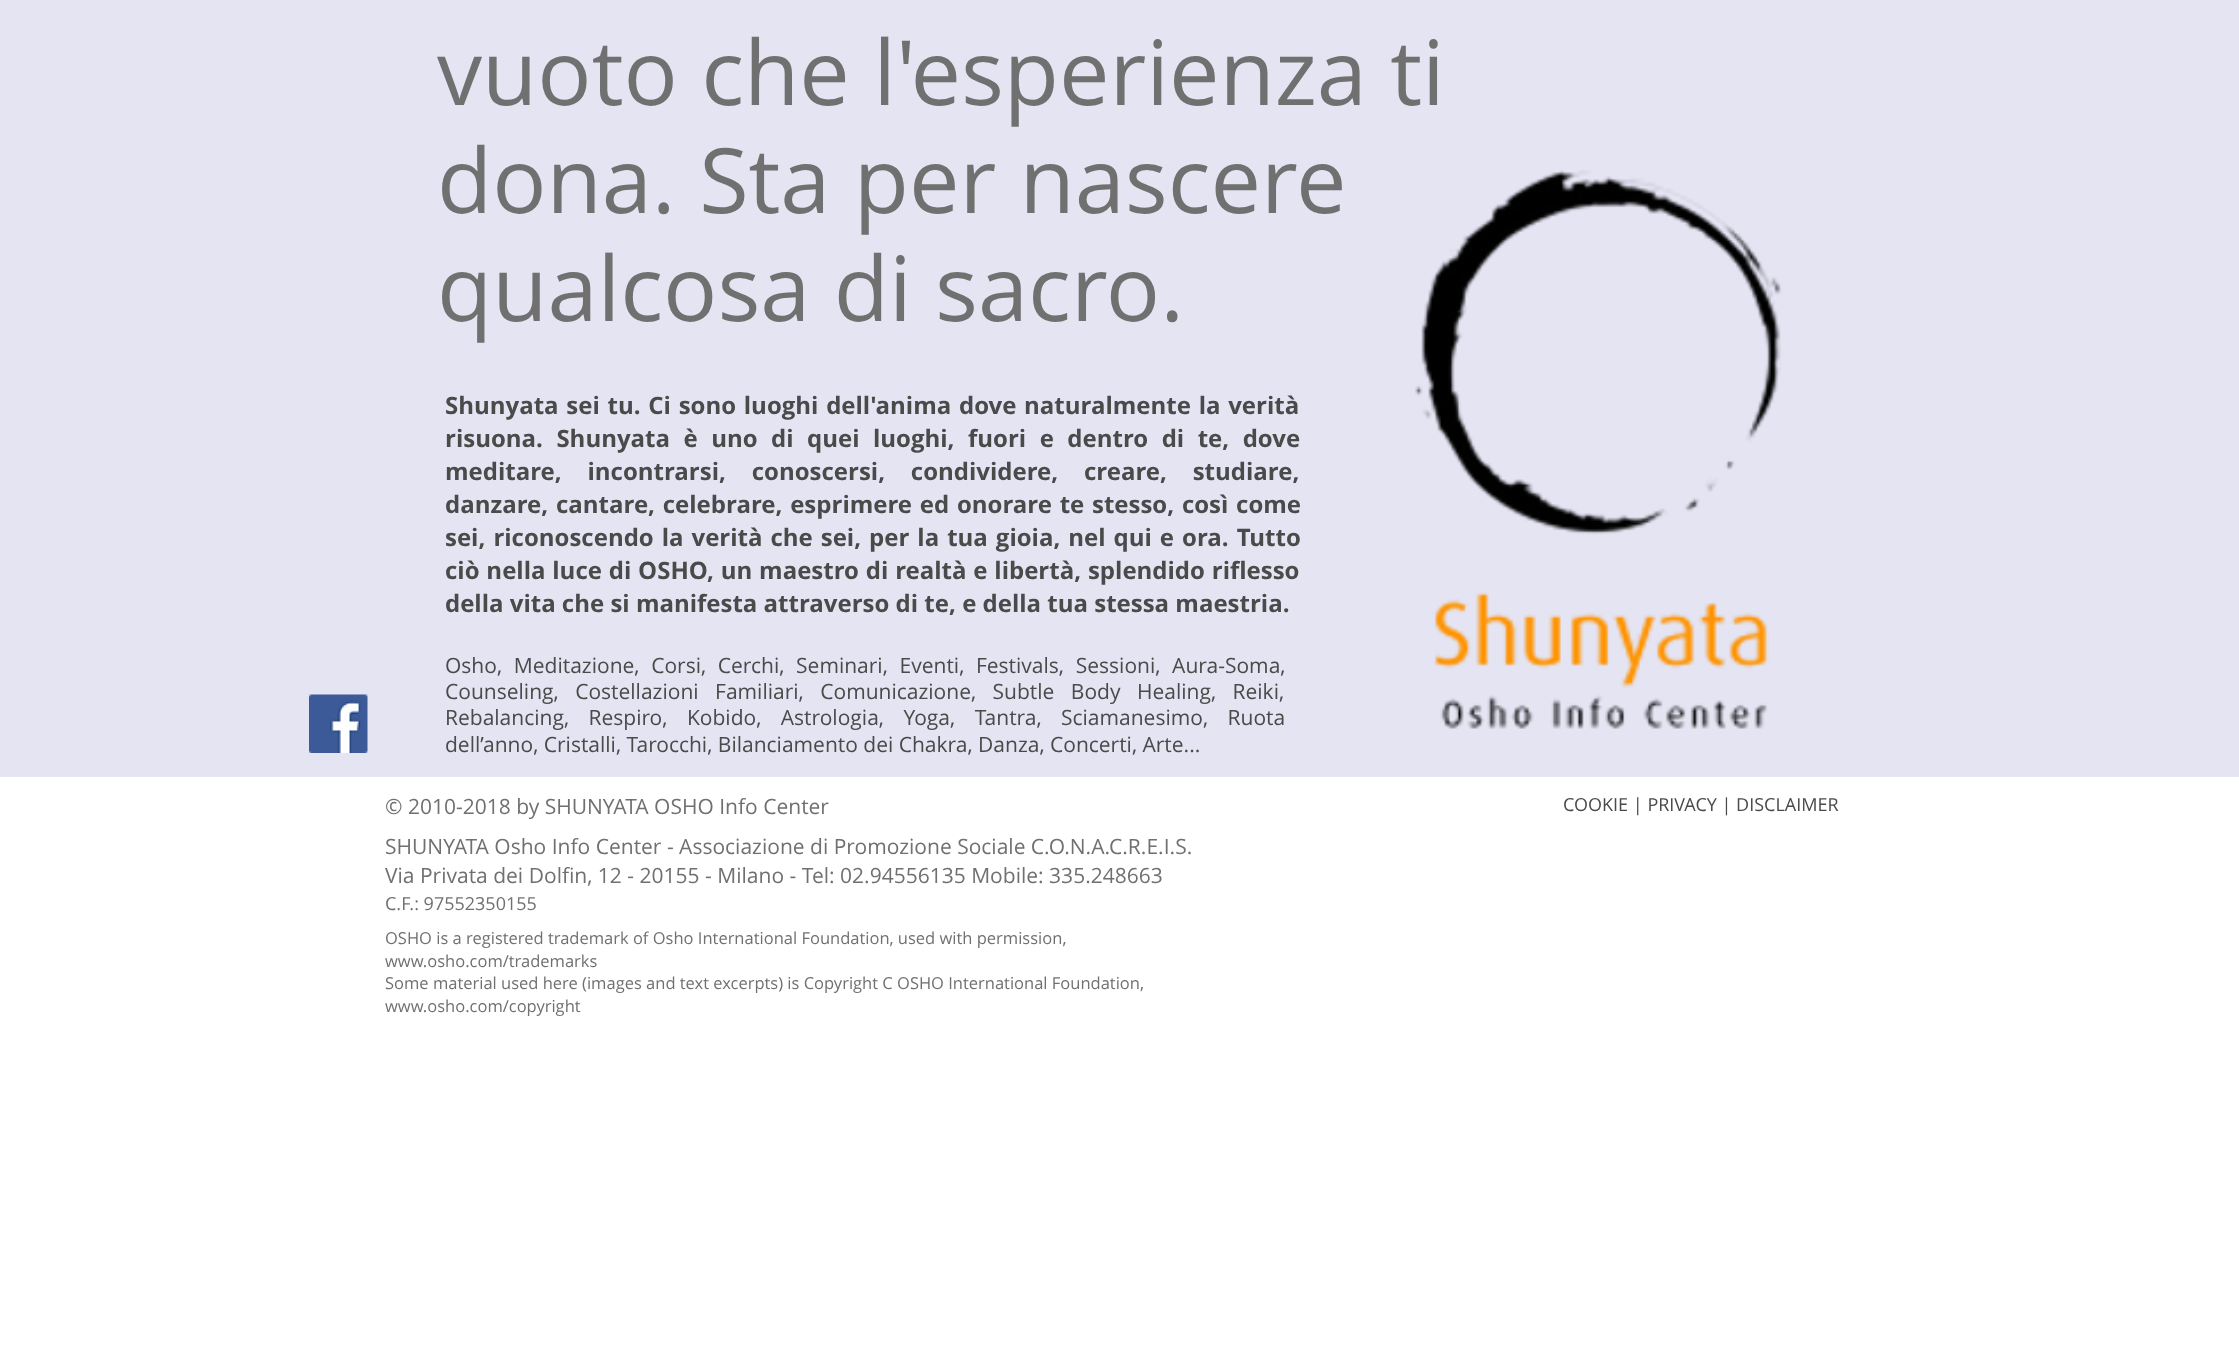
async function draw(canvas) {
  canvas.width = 2239;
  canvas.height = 1368;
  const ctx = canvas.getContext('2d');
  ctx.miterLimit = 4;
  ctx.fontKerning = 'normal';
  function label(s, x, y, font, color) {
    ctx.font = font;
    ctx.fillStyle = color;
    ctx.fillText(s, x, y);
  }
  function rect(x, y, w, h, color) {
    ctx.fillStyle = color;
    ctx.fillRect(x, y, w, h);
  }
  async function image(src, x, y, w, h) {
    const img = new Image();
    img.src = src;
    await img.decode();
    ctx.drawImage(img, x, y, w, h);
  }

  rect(0, 0, 2239, 1368, '#e4e4f3');
  label('vuoto che l\'esperienza ti', 437, 105, '90px Open Sans', '#717070');
  label('dona. Sta per nascere', 437, 213, '90px Open Sans', '#717070');
  label('qualcosa di sacro.', 437, 321, '90px Open Sans', '#717070');
  await image('assets/img1.png', 1415, 170, 367, 559);
  ctx.wordSpacing = '1.5px';
  label('Shunyata sei tu. Ci sono luoghi dell\'anima dove naturalmente la verità', 445, 414, 'bold 24px Open Sans', '#4a4a4a');
  ctx.wordSpacing = '7.25px';
  label('risuona. Shunyata è uno di quei luoghi, fuori e dentro di te, dove', 445, 447, 'bold 24px Open Sans', '#4a4a4a');
  ctx.wordSpacing = '19.5px';
  label('meditare, incontrarsi, conoscersi, condividere, creare, studiare,', 445, 480, 'bold 24px Open Sans', '#4a4a4a');
  ctx.wordSpacing = '1.5px';
  label('danzare, cantare, celebrare, esprimere ed onorare te stesso, così come', 445, 513, 'bold 24px Open Sans', '#4a4a4a');
  ctx.wordSpacing = '1.75px';
  label('sei, riconoscendo la verità che sei, per la tua gioia, nel qui e ora. Tutto', 445, 546, 'bold 24px Open Sans', '#4a4a4a');
  ctx.wordSpacing = '0.6px';
  label('ciò nella luce di OSHO, un maestro di realtà e libertà, splendido riflesso', 445, 579, 'bold 24px Open Sans', '#4a4a4a');
  ctx.wordSpacing = '0px';
  label('della vita che si manifesta attraverso di te, e della tua stessa maestria.', 445, 612, 'bold 24px Open Sans', '#4a4a4a');
  await image('assets/img2.png', 309, 694, 59, 59);
  ctx.wordSpacing = '6.25px';
  label('Osho, Meditazione, Corsi, Cerchi, Seminari, Eventi, Festivals, Sessioni, Aura-Soma,', 445, 673, '21px Open Sans', '#4a4a4a');
  ctx.wordSpacing = '11px';
  label('Counseling, Costellazioni Familiari, Comunicazione, Subtle Body Healing, Reiki,', 445, 699, '21px Open Sans', '#4a4a4a');
  ctx.wordSpacing = '14px';
  label('Rebalancing, Respiro, Kobido, Astrologia, Yoga, Tantra, Sciamanesimo, Ruota', 445, 725, '21px Open Sans', '#4a4a4a');
  ctx.wordSpacing = '0px';
  label('dell’anno, Cristalli, Tarocchi, Bilanciamento dei Chakra, Danza, Concerti, Arte...', 445, 752, '21px Open Sans', '#4a4a4a');
  rect(0, 777, 2239, 591, '#fff');
  label('© 2010-2018 by SHUNYATA OSHO Info Center', 385, 814, '21px Open Sans', '#717070');
  label('SHUNYATA Osho Info Center - Associazione di Promozione Sociale C.O.N.A.C.R.E.I.S.', 385, 854, '21px Open Sans', '#717070');
  label('Via Privata dei Dolfin, 12 - 20155 - Milano - Tel: 02.94556135 Mobile: 335.248663', 385, 883, '21px Open Sans', '#717070');
  label('C.F.: 97552350155', 385, 910, '18px Open Sans', '#717070');
  label('OSHO is a registered trademark of Osho International Foundation, used with permission,', 385, 944, '16.5px Open Sans', '#717070');
  label('www.osho.com/trademarks', 385, 967, '16.5px Open Sans', '#717070');
  label('Some material used here (images and text excerpts) is Copyright C OSHO International Foundation,', 385, 989, '16.5px Open Sans', '#717070');
  label('www.osho.com/copyright', 385, 1012, '16.5px Open Sans', '#717070');
  label('COOKIE | PRIVACY | DISCLAIMER', 1563, 811, '18px Open Sans', '#4a4a4a');
}

draw(document.querySelector('canvas'));
